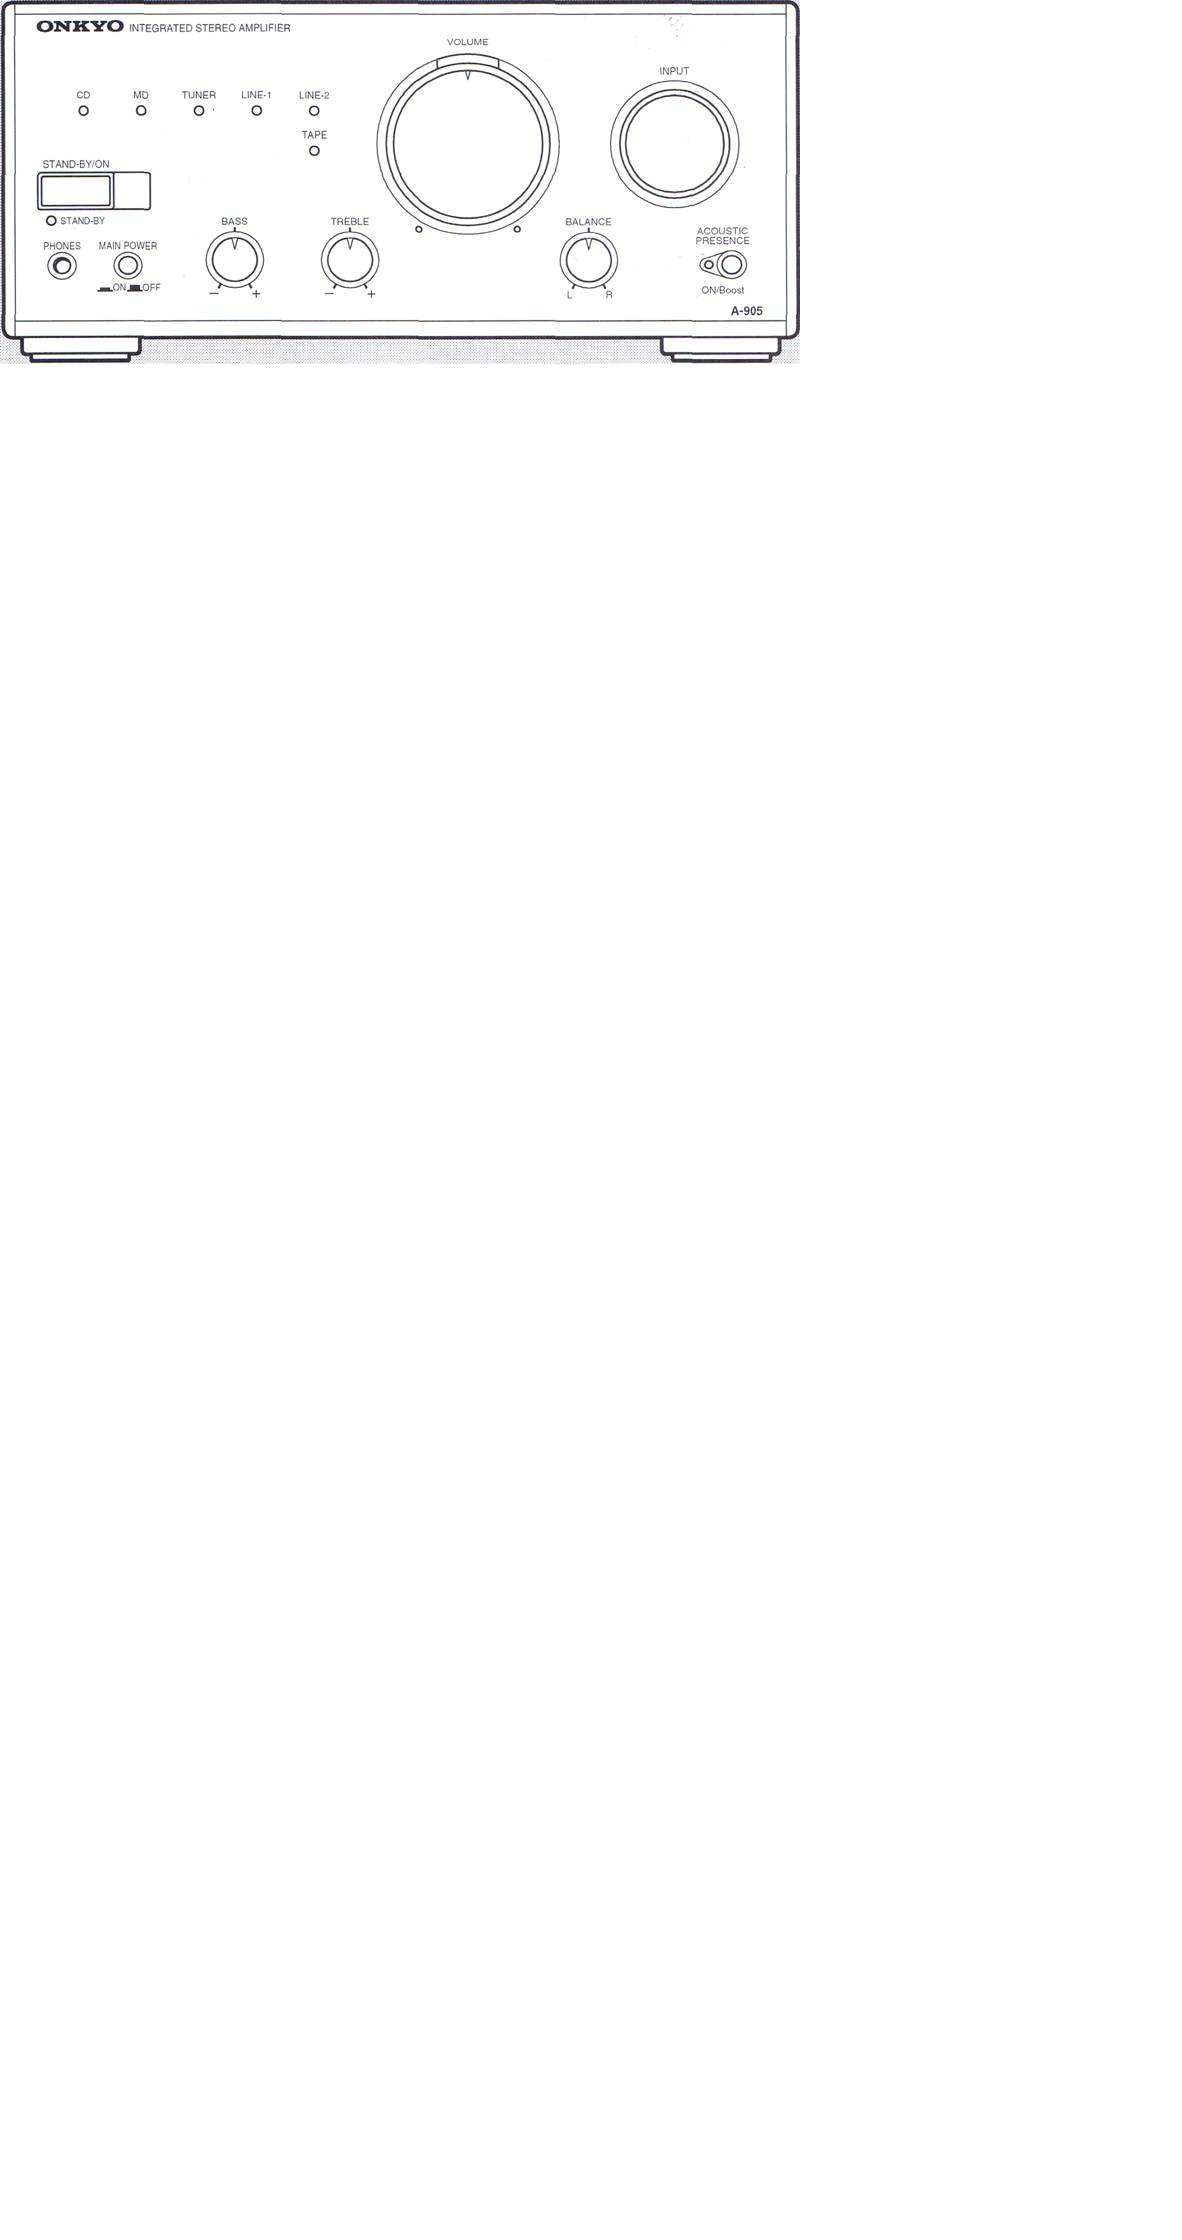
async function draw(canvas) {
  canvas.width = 1182;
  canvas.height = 2240;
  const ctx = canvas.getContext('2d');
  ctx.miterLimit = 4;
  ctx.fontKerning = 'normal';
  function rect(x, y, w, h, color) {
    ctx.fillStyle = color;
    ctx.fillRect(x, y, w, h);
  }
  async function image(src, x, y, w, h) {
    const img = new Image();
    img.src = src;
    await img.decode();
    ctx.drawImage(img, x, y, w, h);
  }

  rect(0, 0, 1182, 2240, '#fff');
  await image('assets/img1.png', 0, 0, 800, 364);
}

draw(document.querySelector('canvas'));
